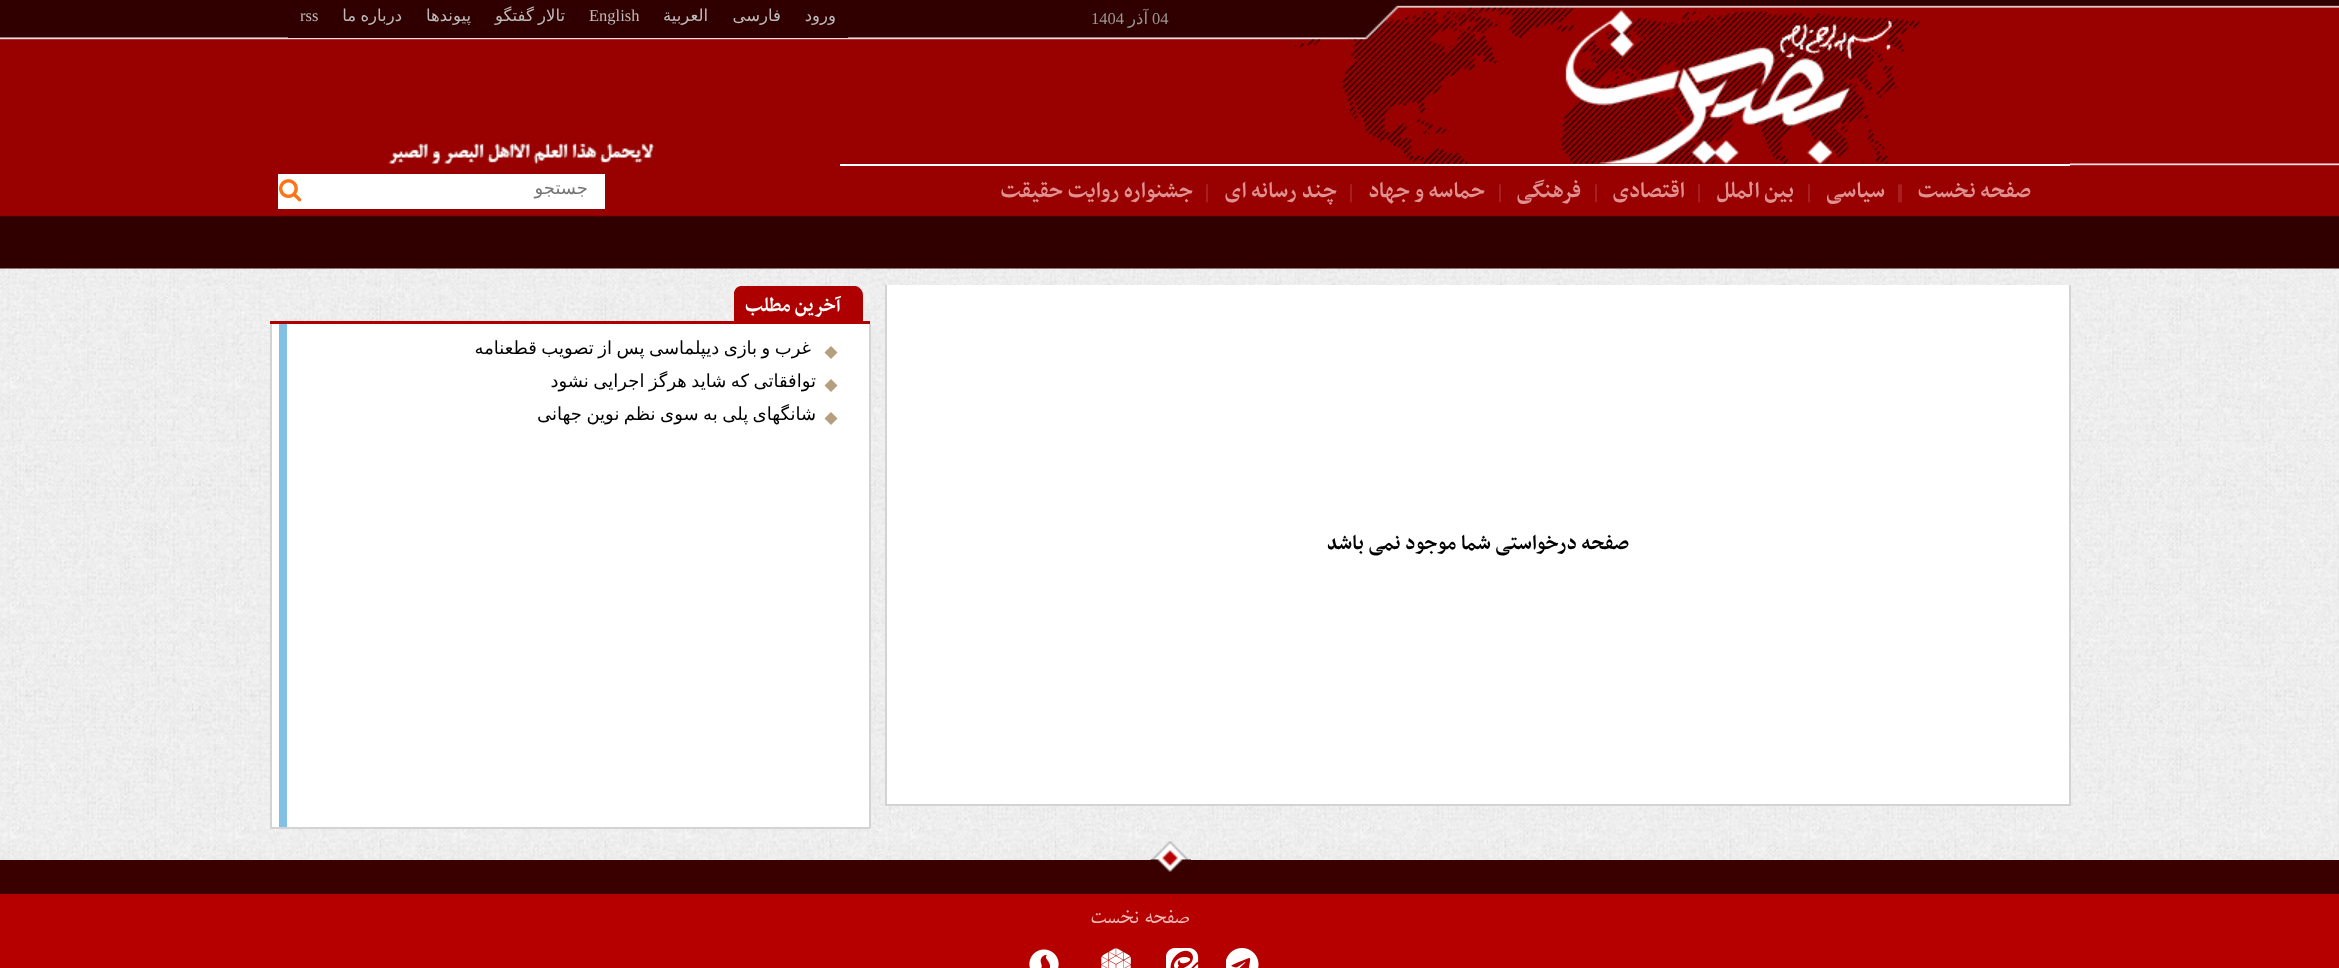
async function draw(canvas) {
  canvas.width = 2339;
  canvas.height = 968;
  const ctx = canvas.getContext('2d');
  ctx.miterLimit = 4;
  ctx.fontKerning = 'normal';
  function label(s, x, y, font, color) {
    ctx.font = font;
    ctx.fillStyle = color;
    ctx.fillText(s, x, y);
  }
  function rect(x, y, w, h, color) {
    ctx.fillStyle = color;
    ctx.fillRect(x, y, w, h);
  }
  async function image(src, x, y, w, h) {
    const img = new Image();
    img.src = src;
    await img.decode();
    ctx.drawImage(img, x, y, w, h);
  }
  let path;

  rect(0, 0, 2339, 968, '#fff');
  await image('assets/img1.png', 0, 268, 2339, 592);
  await image('assets/img2.png', 0, 0, 2339, 269);
  rect(887, 163, 1183, 1, '#990100');
  await image('assets/img3.png', 288, 0, 1782, 164);
  label('04', 1152, 24, '16.5px Liberation Serif', '#989793');
  ctx.direction = 'rtl';
  label('آذر', 1148, 24, '16.5px DejaVu Sans', '#989793');
  ctx.direction = 'ltr';
  label('1404', 1091, 24, '16.5px Liberation Serif', '#989793');
  ctx.direction = 'rtl';
  label('ورود', 836, 21, '16.5px DejaVu Sans', '#bdbbbc');
  label('فارسی', 781, 21, '16.5px DejaVu Sans', '#bdbbbc');
  label('العربیة', 708, 21, '16.5px DejaVu Sans', '#bdbbbc');
  ctx.direction = 'ltr';
  label('English', 589, 21, '16.5px Liberation Serif', '#bdbbbc');
  ctx.wordSpacing = '-1px';
  ctx.direction = 'rtl';
  label('تالار گفتگو', 565, 21, '16.5px DejaVu Sans', '#bdbbbc');
  ctx.wordSpacing = '0px';
  label('پیوندها', 471, 21, '16.5px DejaVu Sans', '#bdbbbc');
  ctx.wordSpacing = '-1px';
  label('درباره ما', 402, 21, '16.5px DejaVu Sans', '#bdbbbc');
  rect(288, 37, 560, 1, '#300000');
  ctx.wordSpacing = '0px';
  ctx.direction = 'ltr';
  label('rss', 300, 21, '16.5px Liberation Serif', '#bdbbbc');
  rect(840, 164, 1230, 2, '#fff');
  ctx.direction = 'rtl';
  label('صفحه نخست', 2031, 197, 'bold 25.5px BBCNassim', '#df9191');
  ctx.direction = 'ltr';
  label('|', 1899, 198, '20px Liberation Serif', '#b93b3c');
  label('|', 1897, 198, '20px Liberation Serif', '#b93b3c');
  ctx.direction = 'rtl';
  label('سیاسی', 1885, 197, 'bold 25.5px BBCNassim', '#df9191');
  ctx.direction = 'ltr';
  label('|', 1807, 198, '20px Liberation Serif', '#b93b3c');
  ctx.direction = 'rtl';
  label('بین الملل', 1794, 197, 'bold 25.5px BBCNassim', '#df9191');
  ctx.direction = 'ltr';
  label('|', 1697, 198, '20px Liberation Serif', '#b93b3c');
  ctx.direction = 'rtl';
  label('اقتصادی', 1685, 197, 'bold 25.5px BBCNassim', '#df9191');
  ctx.direction = 'ltr';
  label('|', 1594, 198, '20px Liberation Serif', '#b93b3c');
  ctx.direction = 'rtl';
  label('فرهنگی', 1581, 197, 'bold 25.5px BBCNassim', '#df9191');
  ctx.direction = 'ltr';
  label('|', 1498, 198, '20px Liberation Serif', '#b93b3c');
  ctx.direction = 'rtl';
  label('حماسه و جهاد', 1485, 197, 'bold 25.5px BBCNassim', '#df9191');
  ctx.direction = 'ltr';
  label('|', 1349, 198, '20px Liberation Serif', '#b93b3c');
  ctx.direction = 'rtl';
  label('چند رسانه ای', 1337, 197, 'bold 25.5px BBCNassim', '#df9191');
  ctx.direction = 'ltr';
  label('|', 1205, 198, '20px Liberation Serif', '#b93b3c');
  ctx.direction = 'rtl';
  label('جشنواره روایت حقیقت', 1193, 197, 'bold 25.5px BBCNassim', '#df9191');
  rect(278, 174, 327, 35, '#fff');
  label('جستجو', 588, 194, '18px DejaVu Sans', '#757575');
  await image('assets/img4.png', 279, 179, 23, 23);
  rect(270, 321, 600, 3, '#ae0001');
  ctx.beginPath();
  ctx.roundRect(734, 287, 129, 34, [8, 8, 0, 0]);
  ctx.fill();
  path = new Path2D('M741 286H855C859 286 862 290 862 294V321H734V294C734 290 737 286 741 286ZM741 290H855C857 290 860 292 860 294V321H736V294C736 292 739 290 741 290Z');
  ctx.fill(path, 'evenodd');
  label('آخرین مطلب', 841, 311, 'bold 22.5px BBCNassim', '#fff');
  rect(272, 324, 597, 503, '#fff');
  rect(869, 324, 2, 504, '#d2d3d5');
  rect(270, 827, 600, 2, '#d2d3d5');
  rect(270, 324, 2, 504, '#d2d3d5');
  ctx.fillStyle = '#b69f7f';
  path = new Path2D('M824.5 352.5L831 346L837.5 352.5L831 359Z');
  ctx.fill(path);
  ctx.wordSpacing = '-1.25px';
  label('غرب و بازی دیپلماسی پس از تصویب قطعنامه', 811, 354, '18px DejaVu Sans', '#000');
  ctx.fillStyle = '#b69f7f';
  path = new Path2D('M824.5 385.5L831 379L837.5 385.5L831 392Z');
  ctx.fill(path);
  label('توافقاتی که شاید هرگز اجرایی نشود', 816, 387, '18px DejaVu Sans', '#000');
  ctx.fillStyle = '#b69f7f';
  path = new Path2D('M824.5 418.5L831 412L837.5 418.5L831 425Z');
  ctx.fill(path);
  label('شانگهای پلی به سوی نظم نوین جهانی', 816, 420, '18px DejaVu Sans', '#000');
  rect(279, 324, 8, 503, '#81c1e5');
  rect(887, 285, 1182, 519, '#fff');
  rect(2069, 285, 2, 521, '#d2d3d5');
  rect(885, 804, 1185, 2, '#d2d3d5');
  rect(885, 285, 2, 521, '#d2d3d5');
  ctx.wordSpacing = '0px';
  label('صفحه درخواستی شما موجود نمی باشد', 1629, 549, 'bold 24px BBCNassim', '#000');
  rect(0, 860, 2339, 34, '#3a0000');
  await image('assets/img5.png', 1150, 841, 41, 31);
  rect(0, 894, 2339, 74, '#b60000');
  label('صفحه نخست', 1189, 923, '25.5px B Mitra', '#ecbab9');
  await image('assets/img6.png', 1226, 948, 33, 20);
  await image('assets/img7.png', 1166, 948, 33, 20);
  await image('assets/img8.png', 1101, 948, 30, 20);
  await image('assets/img9.png', 1029, 949, 30, 19);
}

draw(document.querySelector('canvas'));
